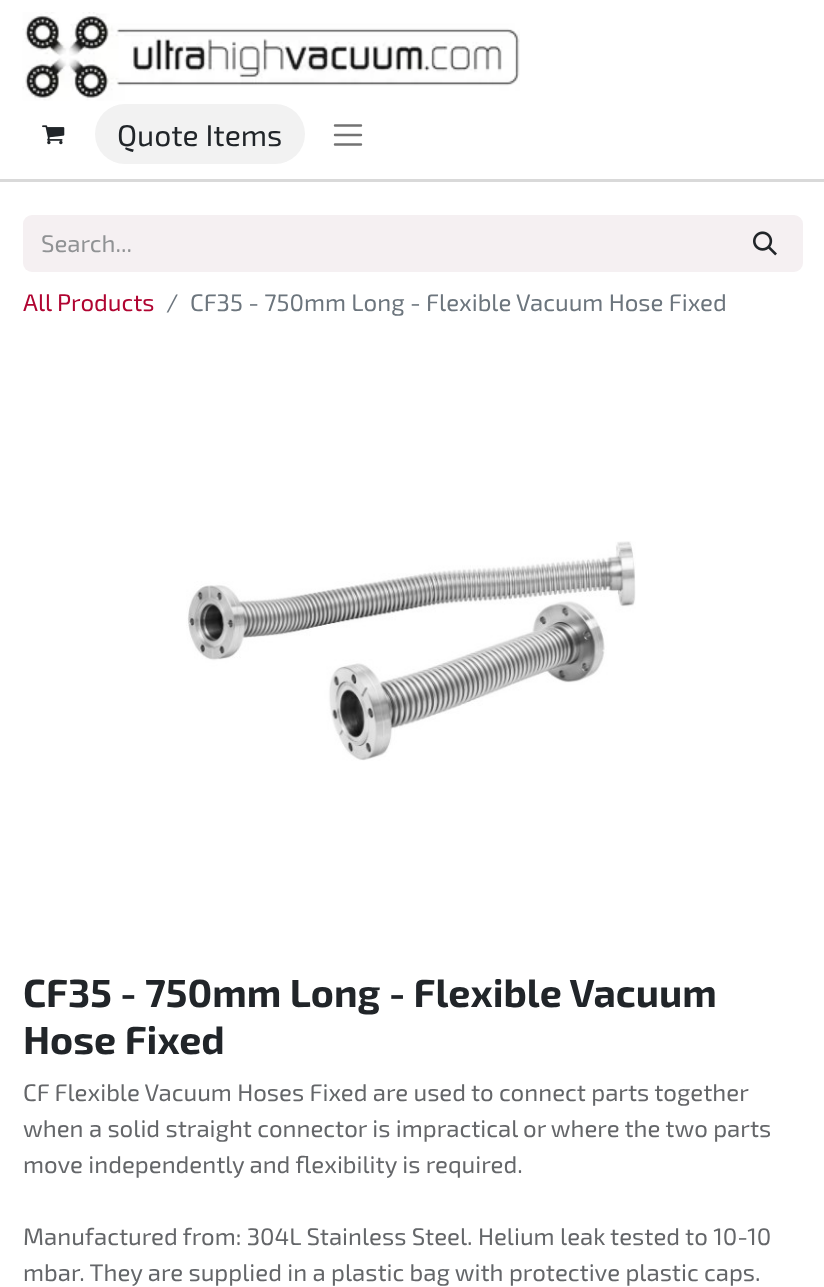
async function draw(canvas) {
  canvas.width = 824;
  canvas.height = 1287;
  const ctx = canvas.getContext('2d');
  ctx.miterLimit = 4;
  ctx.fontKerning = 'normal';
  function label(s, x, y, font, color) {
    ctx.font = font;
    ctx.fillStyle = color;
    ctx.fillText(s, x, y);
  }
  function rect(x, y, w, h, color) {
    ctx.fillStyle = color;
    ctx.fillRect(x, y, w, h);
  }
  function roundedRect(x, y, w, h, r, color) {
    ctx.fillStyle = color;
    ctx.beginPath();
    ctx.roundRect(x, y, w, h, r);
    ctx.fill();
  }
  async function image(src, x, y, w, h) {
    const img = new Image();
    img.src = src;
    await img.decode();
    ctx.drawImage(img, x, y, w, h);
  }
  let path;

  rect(0, 0, 824, 1287, '#fff');
  rect(0, 179, 824, 3, '#d9d9d9');
  await image('assets/img1.png', 22, 12, 498, 89);
  await image('assets/img2.png', 42, 125, 23, 20);
  roundedRect(95, 104, 210, 60, 30, '#f2f2f2');
  label('Quote Items', 117, 146, '30px "Exo 2"', '#212529');
  path = new Path2D('M335 125.5H361M335 135H361M335 144.5H361');
  ctx.strokeStyle = '#737373';
  ctx.lineWidth = 2.4;
  ctx.lineCap = 'round';
  ctx.stroke(path);
  ctx.fillStyle = '#f5f0f2';
  ctx.beginPath();
  ctx.roundRect(23, 215, 706, 57, [9, 0, 0, 9]);
  ctx.fill();
  label('Search...', 41, 252, '24px "Exo 2"', '#909294');
  ctx.fillStyle = '#f5f0f2';
  ctx.beginPath();
  ctx.roundRect(729, 216, 73, 55, [0, 8, 8, 0]);
  ctx.fill();
  ctx.strokeStyle = '#f5f0f2';
  ctx.lineWidth = 2;
  ctx.stroke();
  await image('assets/img3.png', 753, 231, 24, 25);
  label('All Products', 23, 311, '24px "Exo 2"', '#b00431');
  label('/', 166, 311, '24px "Exo 2"', '#6c757d');
  label('CF35 - 750mm Long - Flexible Vacuum Hose Fixed', 190, 311, '24px "Exo 2"', '#6c757d');
  await image('assets/img4.png', 186, 541, 450, 220);
  label('CF35 - 750mm Long - Flexible Vacuum', 23, 1007, 'bold 39.25px "Exo 2"', '#212529');
  label('Hose Fixed', 23, 1054, 'bold 39.25px "Exo 2"', '#212529');
  label('CF Flexible Vacuum Hoses Fixed are used to connect parts together', 23, 1101, '24px "Exo 2"', '#646669');
  label('when a solid straight connector is impractical or where the two parts', 23, 1137, '24px "Exo 2"', '#646669');
  label('move independently and flexibility is required.', 23, 1173, '24px "Exo 2"', '#646669');
  label('Manufactured from: 304L Stainless Steel. Helium leak tested to 10-10', 23, 1245, '24px "Exo 2"', '#646669');
  label('mbar. They are supplied in a plastic bag with protective plastic caps.', 23, 1281, '24px "Exo 2"', '#646669');
}

draw(document.querySelector('canvas'));
